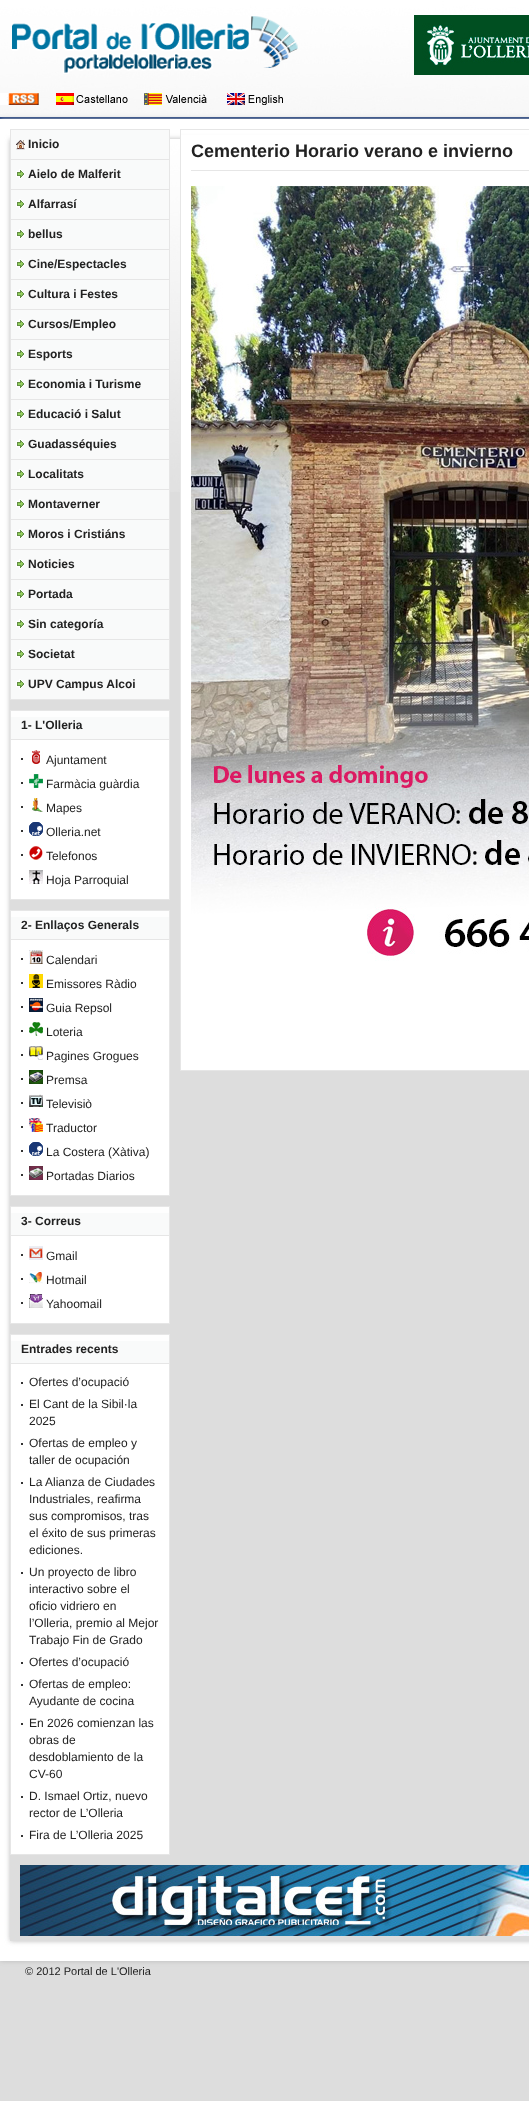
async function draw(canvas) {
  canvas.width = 529;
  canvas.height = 2101;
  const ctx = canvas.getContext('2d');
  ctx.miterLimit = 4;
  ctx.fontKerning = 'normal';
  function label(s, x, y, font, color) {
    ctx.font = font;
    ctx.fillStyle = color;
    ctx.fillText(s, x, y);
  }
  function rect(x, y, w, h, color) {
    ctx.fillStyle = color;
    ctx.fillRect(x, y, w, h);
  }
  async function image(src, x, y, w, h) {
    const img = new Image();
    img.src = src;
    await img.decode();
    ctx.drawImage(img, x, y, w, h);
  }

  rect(0, 0, 529, 2101, '#ddd');
  await image('assets/img1.png', 0, 0, 529, 117);
  await image('assets/img2.png', 12, 16, 286, 58);
  await image('assets/img3.png', 414, 15, 115, 60);
  rect(0, 117, 529, 2, '#16387c');
  await image('assets/img4.png', 0, 93, 39, 12);
  await image('assets/img5.png', 56, 93, 72, 12);
  await image('assets/img6.png', 140, 93, 67, 12);
  await image('assets/img7.png', 222, 93, 61, 12);
  ctx.fillStyle = '#bbb';
  ctx.filter = 'blur(2.5px)';
  ctx.beginPath();
  ctx.rect(0, 119, 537, 1842);
  ctx.fill();
  ctx.filter = 'none';
  rect(0, 119, 529, 1842, '#fff');
  ctx.fillStyle = '#bbb';
  ctx.filter = 'blur(2.5px)';
  ctx.beginPath();
  ctx.rect(10, 139, 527, 1802);
  ctx.fill();
  ctx.filter = 'none';
  rect(10, 492, 519, 1449, '#ddd');
  await image('assets/img8.png', 170, 139, 10, 353);
  await image('assets/img9.png', 20, 1865, 509, 71);
  rect(10, 129, 160, 1, '#e6e6e6');
  rect(11, 130, 158, 29, '#f9fafa');
  await image('assets/img10.png', 16, 140, 9, 10);
  rect(169, 130, 1, 570, '#e6e6e6');
  rect(10, 159, 160, 1, '#e6e6e6');
  rect(10, 130, 1, 30, '#e6e6e6');
  label('Inicio', 28, 148, 'bold 12px Liberation Sans', '#222');
  rect(11, 160, 158, 29, '#f9fafa');
  await image('assets/img11.png', 16, 169, 9, 10);
  rect(10, 189, 160, 1, '#e6e6e6');
  rect(10, 160, 1, 30, '#e6e6e6');
  label('Aielo de Malferit', 28, 178, 'bold 12px Liberation Sans', '#222');
  rect(11, 190, 158, 29, '#f9fafa');
  await image('assets/img11.png', 16, 199, 9, 10);
  rect(10, 219, 160, 1, '#e6e6e6');
  rect(10, 190, 1, 30, '#e6e6e6');
  label('Alfarrasí', 28, 208, 'bold 12px Liberation Sans', '#222');
  rect(11, 220, 158, 29, '#f9fafa');
  await image('assets/img11.png', 16, 229, 9, 10);
  rect(10, 249, 160, 1, '#e6e6e6');
  rect(10, 220, 1, 30, '#e6e6e6');
  label('bellus', 28, 238, 'bold 12px Liberation Sans', '#222');
  rect(11, 250, 158, 29, '#f9fafa');
  await image('assets/img11.png', 16, 259, 9, 10);
  rect(10, 279, 160, 1, '#e6e6e6');
  rect(10, 250, 1, 30, '#e6e6e6');
  label('Cine/Espectacles', 28, 268, 'bold 12px Liberation Sans', '#222');
  rect(11, 280, 158, 29, '#f9fafa');
  await image('assets/img11.png', 16, 289, 9, 10);
  rect(10, 309, 160, 1, '#e6e6e6');
  rect(10, 280, 1, 30, '#e6e6e6');
  label('Cultura i Festes', 28, 298, 'bold 12px Liberation Sans', '#222');
  rect(11, 310, 158, 29, '#f9fafa');
  await image('assets/img11.png', 16, 319, 9, 10);
  rect(10, 339, 160, 1, '#e6e6e6');
  rect(10, 310, 1, 30, '#e6e6e6');
  label('Cursos/Empleo', 28, 328, 'bold 12px Liberation Sans', '#222');
  rect(11, 340, 158, 29, '#f9fafa');
  await image('assets/img11.png', 16, 349, 9, 10);
  rect(10, 369, 160, 1, '#e6e6e6');
  rect(10, 340, 1, 30, '#e6e6e6');
  label('Esports', 28, 358, 'bold 12px Liberation Sans', '#222');
  rect(11, 370, 158, 29, '#f9fafa');
  await image('assets/img11.png', 16, 379, 9, 10);
  rect(10, 399, 160, 1, '#e6e6e6');
  rect(10, 370, 1, 30, '#e6e6e6');
  label('Economia i Turisme', 28, 388, 'bold 12px Liberation Sans', '#222');
  rect(11, 400, 158, 29, '#f9fafa');
  await image('assets/img11.png', 16, 409, 9, 10);
  rect(10, 429, 160, 1, '#e6e6e6');
  rect(10, 400, 1, 30, '#e6e6e6');
  label('Educació i Salut', 28, 418, 'bold 12px Liberation Sans', '#222');
  rect(11, 430, 158, 29, '#f9fafa');
  await image('assets/img11.png', 16, 439, 9, 10);
  rect(10, 459, 160, 1, '#e6e6e6');
  rect(10, 430, 1, 30, '#e6e6e6');
  label('Guadasséquies', 28, 448, 'bold 12px Liberation Sans', '#222');
  rect(11, 460, 158, 29, '#f9fafa');
  await image('assets/img11.png', 16, 469, 9, 10);
  rect(10, 489, 160, 1, '#e6e6e6');
  rect(10, 460, 1, 30, '#e6e6e6');
  label('Localitats', 28, 478, 'bold 12px Liberation Sans', '#222');
  rect(11, 490, 158, 29, '#f9fafa');
  await image('assets/img11.png', 16, 499, 9, 10);
  rect(10, 519, 160, 1, '#e6e6e6');
  rect(10, 490, 1, 30, '#e6e6e6');
  label('Montaverner', 28, 508, 'bold 12px Liberation Sans', '#222');
  rect(11, 520, 158, 29, '#f9fafa');
  await image('assets/img11.png', 16, 529, 9, 10);
  rect(10, 549, 160, 1, '#e6e6e6');
  rect(10, 520, 1, 30, '#e6e6e6');
  label('Moros i Cristiáns', 28, 538, 'bold 12px Liberation Sans', '#222');
  rect(11, 550, 158, 29, '#f9fafa');
  await image('assets/img11.png', 16, 559, 9, 10);
  rect(10, 579, 160, 1, '#e6e6e6');
  rect(10, 550, 1, 30, '#e6e6e6');
  label('Noticies', 28, 568, 'bold 12px Liberation Sans', '#222');
  rect(11, 580, 158, 29, '#f9fafa');
  await image('assets/img11.png', 16, 589, 9, 10);
  rect(10, 609, 160, 1, '#e6e6e6');
  rect(10, 580, 1, 30, '#e6e6e6');
  label('Portada', 28, 598, 'bold 12px Liberation Sans', '#222');
  rect(11, 610, 158, 29, '#f9fafa');
  await image('assets/img11.png', 16, 619, 9, 10);
  rect(10, 639, 160, 1, '#e6e6e6');
  rect(10, 610, 1, 30, '#e6e6e6');
  label('Sin categoría', 28, 628, 'bold 12px Liberation Sans', '#222');
  rect(11, 640, 158, 29, '#f9fafa');
  await image('assets/img11.png', 16, 649, 9, 10);
  rect(10, 669, 160, 1, '#e6e6e6');
  rect(10, 640, 1, 30, '#e6e6e6');
  label('Societat', 28, 658, 'bold 12px Liberation Sans', '#222');
  rect(11, 670, 158, 29, '#f9fafa');
  await image('assets/img11.png', 16, 679, 9, 10);
  rect(10, 699, 160, 1, '#e6e6e6');
  rect(10, 670, 1, 30, '#e6e6e6');
  label('UPV Campus Alcoi', 28, 688, 'bold 12px Liberation Sans', '#222');
  rect(11, 717, 158, 22, '#f9fafa');
  rect(10, 711, 160, 6, '#fefefe');
  ctx.strokeStyle = '#e6e6e6';
  ctx.strokeRect(10.5, 710.5, 159, 29);
  label('1- L\'Olleria', 21, 729, 'bold 12px Liberation Sans', '#222');
  rect(11, 740, 158, 159, '#fff');
  rect(169, 740, 1, 160, '#e6e6e6');
  rect(10, 899, 160, 1, '#e6e6e6');
  rect(10, 740, 1, 160, '#e6e6e6');
  rect(21, 758, 2, 2, '#333');
  await image('assets/img12.png', 29, 750, 14, 14);
  label('Ajuntament', 46, 764, '12px Liberation Sans', '#222');
  rect(21, 782, 2, 2, '#333');
  await image('assets/img13.png', 29, 774, 14, 14);
  label('Farmàcia guàrdia', 46, 788, '12px Liberation Sans', '#222');
  rect(21, 806, 2, 2, '#333');
  await image('assets/img14.png', 32, 798, 11, 14);
  label('Mapes', 46, 812, '12px Liberation Sans', '#222');
  rect(21, 830, 2, 2, '#333');
  await image('assets/img15.png', 29, 822, 14, 14);
  label('Olleria.net', 46, 836, '12px Liberation Sans', '#222');
  rect(21, 854, 2, 2, '#333');
  await image('assets/img16.png', 29, 846, 14, 14);
  label('Telefonos', 46, 860, '12px Liberation Sans', '#222');
  rect(21, 878, 2, 2, '#333');
  await image('assets/img17.png', 29, 870, 14, 14);
  label('Hoja Parroquial', 46, 884, '12px Liberation Sans', '#222');
  rect(11, 917, 158, 22, '#f9fafa');
  rect(10, 911, 160, 6, '#fefefe');
  ctx.strokeRect(10.5, 910.5, 159, 29);
  label('2- Enllaços Generals', 21, 929, 'bold 12px Liberation Sans', '#222');
  rect(11, 940, 158, 255, '#fff');
  rect(169, 940, 1, 256, '#e6e6e6');
  rect(10, 1195, 160, 1, '#e6e6e6');
  rect(10, 940, 1, 256, '#e6e6e6');
  rect(21, 958, 2, 2, '#333');
  await image('assets/img18.png', 29, 950, 14, 14);
  label('Calendari', 46, 964, '12px Liberation Sans', '#222');
  rect(21, 982, 2, 2, '#333');
  await image('assets/img19.png', 29, 974, 14, 14);
  label('Emissores Ràdio', 46, 988, '12px Liberation Sans', '#222');
  rect(21, 1006, 2, 2, '#333');
  await image('assets/img20.png', 29, 998, 14, 14);
  label('Guia Repsol', 46, 1012, '12px Liberation Sans', '#222');
  rect(21, 1030, 2, 2, '#333');
  await image('assets/img21.png', 29, 1022, 14, 14);
  label('Loteria', 46, 1036, '12px Liberation Sans', '#222');
  rect(21, 1054, 2, 2, '#333');
  await image('assets/img22.png', 29, 1046, 14, 14);
  label('Pagines Grogues', 46, 1060, '12px Liberation Sans', '#222');
  rect(21, 1078, 2, 2, '#333');
  await image('assets/img23.png', 29, 1070, 14, 14);
  label('Premsa', 46, 1084, '12px Liberation Sans', '#222');
  rect(21, 1102, 2, 2, '#333');
  await image('assets/img24.png', 29, 1094, 14, 13);
  label('Televisiò', 46, 1108, '12px Liberation Sans', '#222');
  rect(21, 1126, 2, 2, '#333');
  await image('assets/img25.png', 29, 1118, 14, 14);
  label('Traductor', 46, 1132, '12px Liberation Sans', '#222');
  rect(21, 1150, 2, 2, '#333');
  await image('assets/img15.png', 29, 1142, 14, 14);
  label('La Costera (Xàtiva)', 46, 1156, '12px Liberation Sans', '#222');
  rect(21, 1174, 2, 2, '#333');
  await image('assets/img26.png', 29, 1166, 14, 14);
  label('Portadas Diarios', 46, 1180, '12px Liberation Sans', '#222');
  rect(11, 1213, 158, 22, '#f9fafa');
  rect(10, 1207, 160, 6, '#fefefe');
  ctx.strokeRect(10.5, 1206.5, 159, 29);
  label('3- Correus', 21, 1225, 'bold 12px Liberation Sans', '#222');
  rect(11, 1236, 158, 87, '#fff');
  rect(169, 1236, 1, 88, '#e6e6e6');
  rect(10, 1323, 160, 1, '#e6e6e6');
  rect(10, 1236, 1, 88, '#e6e6e6');
  rect(21, 1254, 2, 2, '#333');
  await image('assets/img27.png', 29, 1246, 14, 14);
  label('Gmail', 46, 1260, '12px Liberation Sans', '#222');
  rect(21, 1278, 2, 2, '#333');
  await image('assets/img28.png', 29, 1270, 14, 14);
  label('Hotmail', 46, 1284, '12px Liberation Sans', '#222');
  rect(21, 1302, 2, 2, '#333');
  await image('assets/img29.png', 29, 1294, 14, 14);
  label('Yahoomail', 46, 1308, '12px Liberation Sans', '#222');
  rect(11, 1341, 158, 22, '#f9fafa');
  rect(10, 1335, 160, 6, '#fefefe');
  ctx.strokeRect(10.5, 1334.5, 159, 29);
  label('Entrades recents', 21, 1353, 'bold 12px Liberation Sans', '#222');
  rect(11, 1364, 158, 490, '#fff');
  rect(169, 1364, 1, 491, '#e6e6e6');
  rect(10, 1854, 160, 1, '#e6e6e6');
  rect(10, 1364, 1, 491, '#e6e6e6');
  rect(21, 1382, 2, 2, '#333');
  label('Ofertes d’ocupació', 29, 1386, '12px Liberation Sans', '#222');
  rect(21, 1404, 2, 2, '#333');
  label('El Cant de la Sibil·la', 29, 1408, '12px Liberation Sans', '#222');
  label('2025', 29, 1425, '12px Liberation Sans', '#222');
  rect(21, 1443, 2, 2, '#333');
  label('Ofertas de empleo y', 29, 1447, '12px Liberation Sans', '#222');
  label('taller de ocupación', 29, 1464, '12px Liberation Sans', '#222');
  rect(21, 1482, 2, 2, '#333');
  label('La Alianza de Ciudades', 29, 1486, '12px Liberation Sans', '#222');
  label('Industriales, reafirma', 29, 1503, '12px Liberation Sans', '#222');
  label('sus compromisos, tras', 29, 1520, '12px Liberation Sans', '#222');
  label('el éxito de sus primeras', 29, 1537, '12px Liberation Sans', '#222');
  label('ediciones.', 29, 1554, '12px Liberation Sans', '#222');
  rect(21, 1572, 2, 2, '#333');
  label('Un proyecto de libro', 29, 1576, '12px Liberation Sans', '#222');
  label('interactivo sobre el', 29, 1593, '12px Liberation Sans', '#222');
  label('oficio vidriero en', 29, 1610, '12px Liberation Sans', '#222');
  label('l’Olleria, premio al Mejor', 29, 1627, '12px Liberation Sans', '#222');
  label('Trabajo Fin de Grado', 29, 1644, '12px Liberation Sans', '#222');
  rect(21, 1662, 2, 2, '#333');
  label('Ofertes d’ocupació', 29, 1666, '12px Liberation Sans', '#222');
  rect(21, 1684, 2, 2, '#333');
  label('Ofertas de empleo:', 29, 1688, '12px Liberation Sans', '#222');
  label('Ayudante de cocina', 29, 1705, '12px Liberation Sans', '#222');
  rect(21, 1723, 2, 2, '#333');
  label('En 2026 comienzan las', 29, 1727, '12px Liberation Sans', '#222');
  label('obras de', 29, 1744, '12px Liberation Sans', '#222');
  label('desdoblamiento de la', 29, 1761, '12px Liberation Sans', '#222');
  label('CV-60', 29, 1778, '12px Liberation Sans', '#222');
  rect(21, 1796, 2, 2, '#333');
  label('D. Ismael Ortiz, nuevo', 29, 1800, '12px Liberation Sans', '#222');
  label('rector de L’Olleria', 29, 1817, '12px Liberation Sans', '#222');
  rect(21, 1835, 2, 2, '#333');
  label('Fira de L’Olleria 2025', 29, 1839, '12px Liberation Sans', '#222');
  rect(181, 135, 348, 935, '#fff');
  ctx.strokeRect(180.5, 129.5, 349, 941);
  label('Cementerio Horario verano e invierno', 191, 157, 'bold 18px Liberation Sans', '#222');
  rect(191, 170, 338, 1, '#e6e6e6');
  await image('assets/img30.png', 191, 186, 338, 775);
  label('© 2012 Portal de L\'Olleria', 25, 1975, '11px Liberation Sans', '#222');
}

draw(document.querySelector('canvas'));
